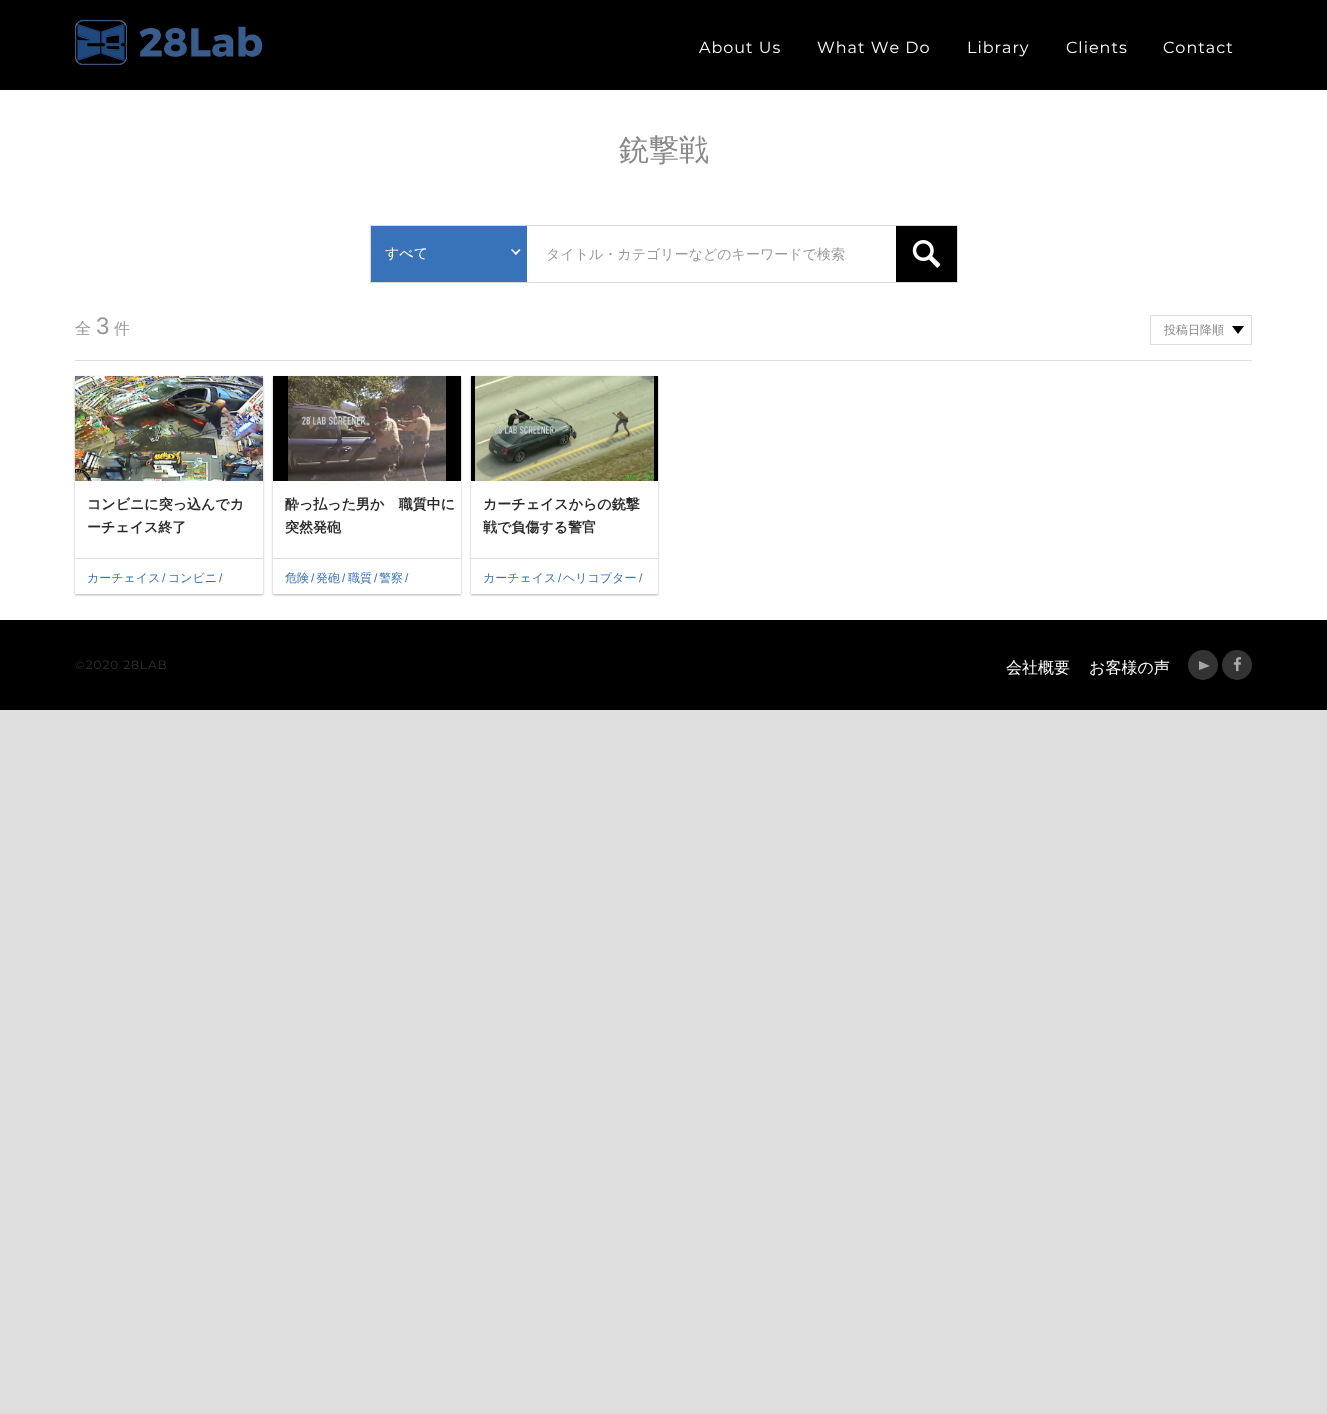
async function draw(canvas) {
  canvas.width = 1327;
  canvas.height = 1414;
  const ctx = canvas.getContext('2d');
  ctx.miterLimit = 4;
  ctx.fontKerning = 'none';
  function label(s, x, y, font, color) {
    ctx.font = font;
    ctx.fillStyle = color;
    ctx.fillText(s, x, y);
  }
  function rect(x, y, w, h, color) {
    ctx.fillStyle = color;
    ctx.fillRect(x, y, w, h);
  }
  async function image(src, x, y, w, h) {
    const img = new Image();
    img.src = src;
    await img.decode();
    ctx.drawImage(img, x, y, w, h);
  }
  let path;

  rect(0, 0, 1327, 1414, '#dedede');
  rect(0, 0, 1327, 90, '#000');
  await image('assets/img1.png', 75, 20, 188, 45);
  ctx.letterSpacing = '1px';
  label('About Us', 699, 53, '16px Montserrat', '#fff');
  label('What We Do', 817, 53, '16px Montserrat', '#fff');
  label('Library', 967, 53, '16px Montserrat', '#fff');
  label('Clients', 1066, 53, '16px Montserrat', '#fff');
  label('Contact', 1163, 53, '16px Montserrat', '#fff');
  rect(0, 90, 1327, 530, '#fff');
  rect(75, 360, 1177, 1, '#ddd');
  ctx.letterSpacing = '0px';
  label('銃撃戦', 619, 160, '500 30px WenQuanYi Zen Hei', '#888');
  ctx.strokeStyle = '#dadada';
  ctx.strokeRect(370.5, 225.5, 587, 57);
  rect(371, 226, 156, 56, '#3872b8');
  label('すべて', 385, 258, '500 14px WenQuanYi Zen Hei', '#fff');
  path = new Path2D('M519.5 249L520.5 250L516 255L514.5 253.5Z');
  ctx.fill(path);
  path = new Path2D('M512 249L517 253.5L516 255L511 250Z');
  ctx.fill(path);
  label('タイトル・カテゴリーなどのキーワードで検索', 546, 259, '500 14px WenQuanYi Zen Hei', '#999');
  rect(896, 226, 61, 56, '#000');
  await image('assets/img2.png', 912, 240, 28, 28);
  label('全', 75, 334, '500 16px WenQuanYi Zen Hei', '#999');
  label('3', 96, 334, '24px Liberation Sans', '#999');
  label('件', 114, 334, '500 16px WenQuanYi Zen Hei', '#999');
  ctx.strokeStyle = '#dedede';
  ctx.strokeRect(1150.5, 315.5, 101, 29);
  ctx.save();
  ctx.beginPath();
  ctx.rect(1164, 324, 60, 12);
  ctx.clip();
  label('投稿日降順', 1164, 334, '500 12px WenQuanYi Zen Hei', '#888');
  ctx.restore();
  ctx.fillStyle = '#000';
  path = new Path2D('M1232 326H1244L1238 334Z');
  ctx.fill(path);
  ctx.save();
  path = new Path2D('M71 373H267V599H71ZM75 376H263V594H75Z');
  ctx.clip(path, 'evenodd');
  ctx.fillStyle = '#0000004d';
  ctx.filter = 'blur(1px)';
  ctx.beginPath();
  ctx.rect(75, 377, 188, 218);
  ctx.fill();
  ctx.filter = 'none';
  ctx.restore();
  await image('assets/img3.png', 75, 376, 188, 105);
  label('コンビニに突っ込んでカ', 87, 509, 'bold 14px WenQuanYi Zen Hei', '#2b2b2b');
  label('ーチェイス終了', 87, 532, 'bold 14px WenQuanYi Zen Hei', '#2b2b2b');
  rect(75, 558, 188, 1, '#dedede');
  label('カーチェイス', 87, 582, '500 12px WenQuanYi Zen Hei', '#3872b8');
  label('/', 162, 582, '12px Liberation Sans', '#3872b8');
  label('コンビニ', 168, 582, '500 12px WenQuanYi Zen Hei', '#3872b8');
  label('/', 219, 582, '12px Liberation Sans', '#3872b8');
  ctx.save();
  path = new Path2D('M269 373H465V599H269ZM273 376H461V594H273Z');
  ctx.clip(path, 'evenodd');
  ctx.fillStyle = '#0000004d';
  ctx.filter = 'blur(1px)';
  ctx.beginPath();
  ctx.rect(273, 377, 188, 218);
  ctx.fill();
  ctx.filter = 'none';
  ctx.restore();
  rect(273, 376, 188, 105, '#000');
  await image('assets/img4.png', 288, 376, 158, 105);
  label('酔っ払った男が職質中に', 285, 509, 'bold 14px WenQuanYi Zen Hei', '#2b2b2b');
  label('突然発砲', 285, 532, 'bold 14px WenQuanYi Zen Hei', '#2b2b2b');
  rect(273, 558, 188, 1, '#dedede');
  label('危険', 285, 582, '500 12px WenQuanYi Zen Hei', '#3872b8');
  label('/', 311, 582, '12px Liberation Sans', '#3872b8');
  label('発砲', 316, 582, '500 12px WenQuanYi Zen Hei', '#3872b8');
  label('/', 342, 582, '12px Liberation Sans', '#3872b8');
  label('職質', 348, 582, '500 12px WenQuanYi Zen Hei', '#3872b8');
  label('/', 374, 582, '12px Liberation Sans', '#3872b8');
  label('警察', 379, 582, '500 12px WenQuanYi Zen Hei', '#3872b8');
  label('/', 405, 582, '12px Liberation Sans', '#3872b8');
  ctx.save();
  path = new Path2D('M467 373H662V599H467ZM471 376H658V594H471Z');
  ctx.clip(path, 'evenodd');
  ctx.fillStyle = '#0000004d';
  ctx.filter = 'blur(1px)';
  ctx.beginPath();
  ctx.rect(471, 377, 187, 218);
  ctx.fill();
  ctx.filter = 'none';
  ctx.restore();
  rect(471, 376, 187, 105, '#000');
  await image('assets/img5.png', 475, 376, 179, 105);
  label('カーチェイスからの銃撃', 483, 509, 'bold 14px WenQuanYi Zen Hei', '#2b2b2b');
  label('戦で負傷する警官', 483, 532, 'bold 14px WenQuanYi Zen Hei', '#2b2b2b');
  rect(471, 558, 187, 1, '#dedede');
  label('カーチェイス', 483, 582, '500 12px WenQuanYi Zen Hei', '#3872b8');
  label('/', 558, 582, '12px Liberation Sans', '#3872b8');
  label('ヘリコプター', 563, 582, '500 12px WenQuanYi Zen Hei', '#3872b8');
  label('/', 639, 582, '12px Liberation Sans', '#3872b8');
  rect(0, 620, 1327, 90, '#000');
  ctx.letterSpacing = '1px';
  label('©2020 28LAB', 75, 669, '12px Montserrat', '#333');
  ctx.letterSpacing = '0px';
  label('会社概要', 1006, 673, '500 16px WenQuanYi Zen Hei', '#fff');
  label('お客様の声', 1089, 673, '500 16px WenQuanYi Zen Hei', '#fff');
  ctx.fillStyle = '#333';
  ctx.beginPath();
  ctx.arc(1203, 665, 15, 0, 2 * Math.PI);
  ctx.fill();
  await image('assets/img6.png', 1199, 661, 11, 9);
  ctx.beginPath();
  ctx.arc(1237, 665, 15, 0, 2 * Math.PI);
  ctx.fill();
  await image('assets/img7.png', 1233, 657, 8, 15);
}

draw(document.querySelector('canvas'));
